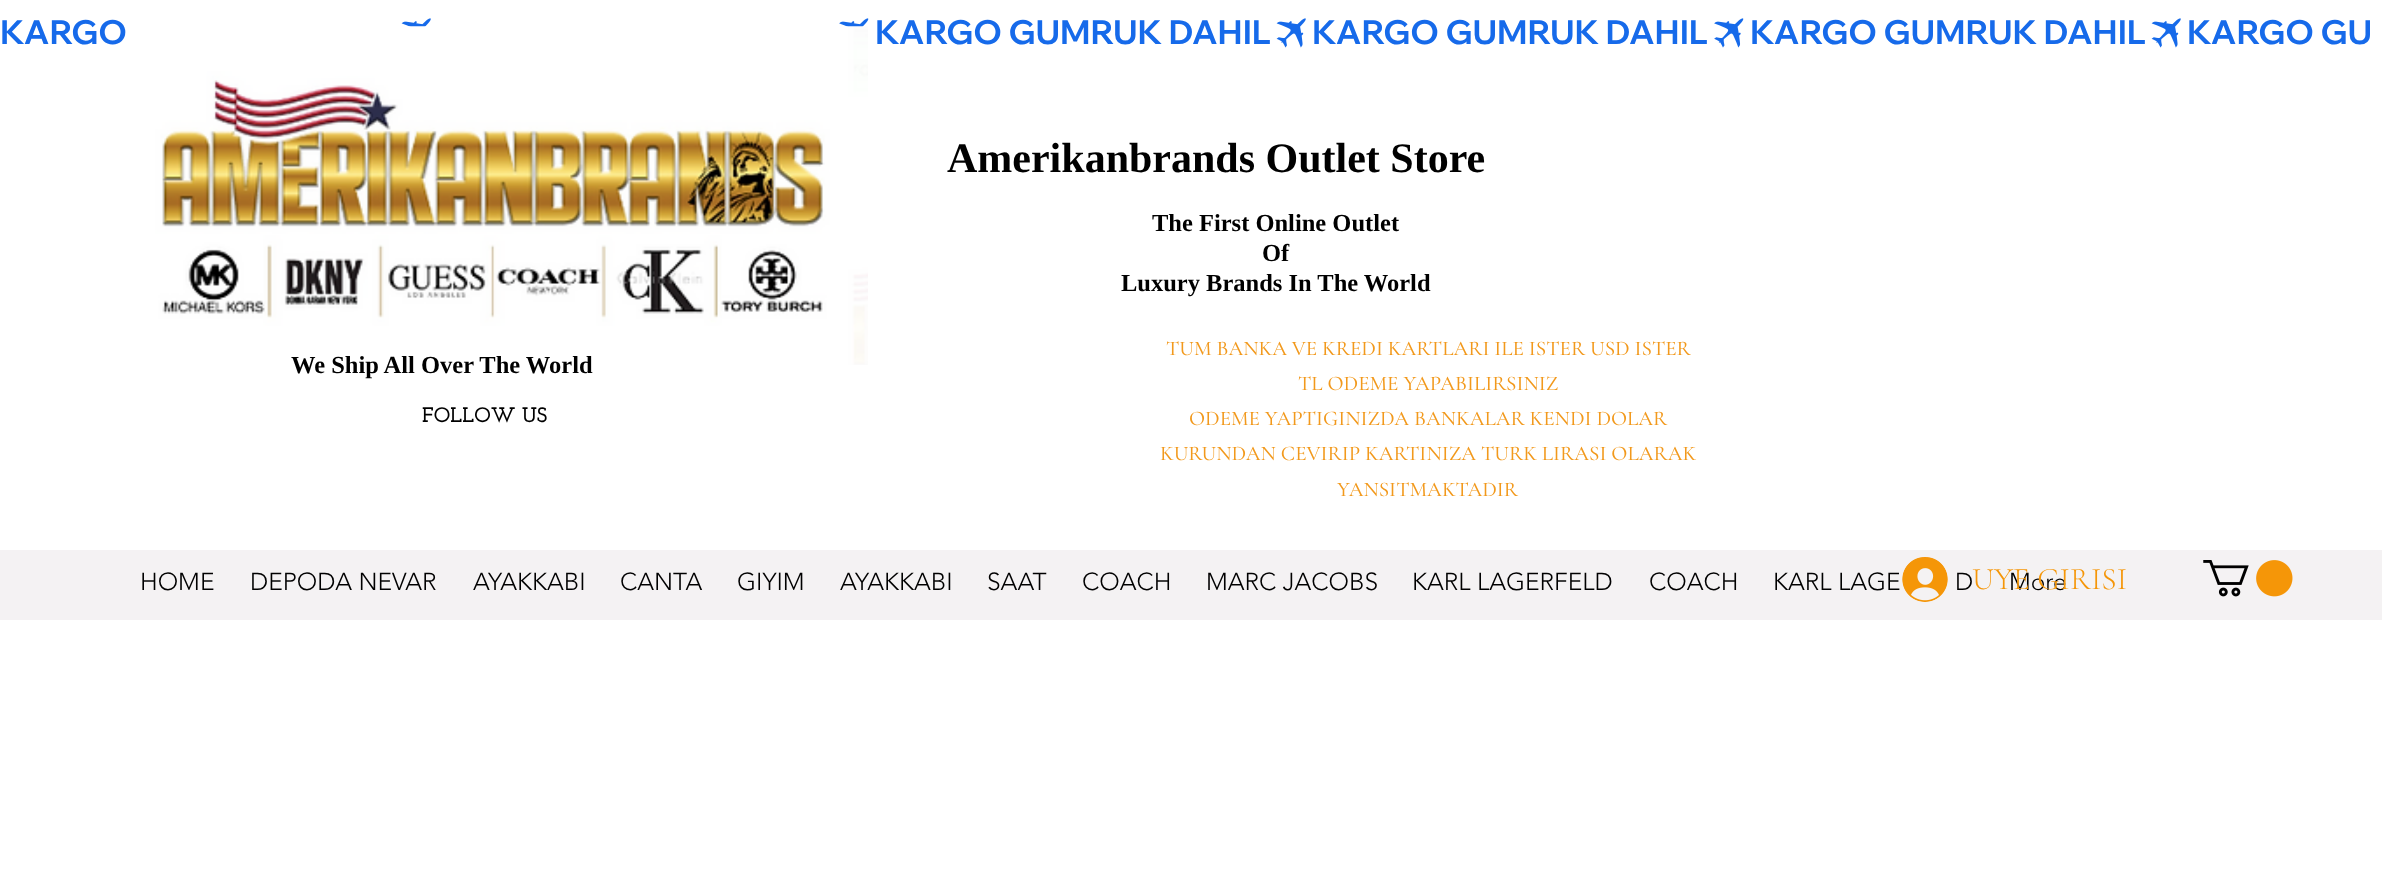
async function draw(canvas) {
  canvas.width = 2382;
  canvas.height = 886;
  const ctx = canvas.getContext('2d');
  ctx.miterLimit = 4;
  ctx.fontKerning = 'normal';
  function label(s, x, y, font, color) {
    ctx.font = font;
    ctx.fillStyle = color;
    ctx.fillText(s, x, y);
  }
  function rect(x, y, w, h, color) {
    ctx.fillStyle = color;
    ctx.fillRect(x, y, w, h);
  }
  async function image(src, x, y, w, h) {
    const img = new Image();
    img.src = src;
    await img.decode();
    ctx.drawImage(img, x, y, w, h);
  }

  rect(0, 0, 2382, 886, '#fff');
  label('KARGO', 0, 44, 'bold 33.25px Wix Madefor Display', '#166aea');
  await image('assets/img1.png', 401, 18, 30, 9);
  await image('assets/img2.png', 839, 18, 30, 9);
  label('KARGO GUMRUK DAHIL', 875, 44, 'bold 33.25px Wix Madefor Display', '#166aea');
  await image('assets/img3.png', 1276, 18, 30, 30);
  label('KARGO GUMRUK DAHIL', 1312, 44, 'bold 33.25px Wix Madefor Display', '#166aea');
  await image('assets/img4.png', 1714, 18, 30, 30);
  label('KARGO GUMRUK DAHIL', 1750, 44, 'bold 33.25px Wix Madefor Display', '#166aea');
  await image('assets/img3.png', 2151, 18, 30, 30);
  label('KARGO GU', 2187, 44, 'bold 33.25px Wix Madefor Display', '#166aea');
  await image('assets/img5.png', 140, 26, 728, 339);
  label('Amerikanbrands Outlet Store', 947, 172, 'bold 42px Liberation Serif', '#000');
  label('The First Online Outlet', 1152, 231, 'bold 24.5px Liberation Serif', '#000');
  label('Of', 1262, 261, 'bold 24.5px Liberation Serif', '#000');
  label('Luxury Brands In The World', 1121, 291, 'bold 24.5px Liberation Serif', '#000');
  label('We Ship All Over The World', 291, 373, 'bold 24.5px Liberation Serif', '#000');
  label('FOLLOW US', 422, 422, 'bold 21px Josefin Slab', '#000');
  label('TUM BANKA VE KREDI KARTLARI ILE ISTER USD ISTER', 1166, 355, '500 21px Cormorant Garamond', '#f2991c');
  label('TL ODEME YAPABILIRSINIZ', 1298, 390, '500 21px Cormorant Garamond', '#f2991c');
  label('ODEME YAPTIGINIZDA BANKALAR KENDI DOLAR', 1189, 425, '500 21px Cormorant Garamond', '#f2991c');
  label('KURUNDAN CEVIRIP KARTINIZA TURK LIRASI OLARAK', 1160, 460, '500 21px Cormorant Garamond', '#f2991c');
  label('YANSITMAKTADIR', 1337, 496, '500 21px Cormorant Garamond', '#f2991c');
  rect(0, 550, 2382, 70, '#f4f2f3');
  await image('assets/img6.png', 1902, 557, 46, 45);
  label('More', 2009, 590, '300 24.5px "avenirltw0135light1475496"', '#000');
  label('UYE GIRISI', 1972, 589, '300 31.5px Cormorant Garamond', '#f59608');
  label('HOME', 140, 590, '300 24.5px "avenirltw0135light1475496"', '#000');
  label('DEPODA NEVAR', 250, 590, '300 24.5px "avenirltw0135light1475496"', '#000');
  label('AYAKKABI', 473, 590, '300 24.5px "avenirltw0135light1475496"', '#000');
  label('CANTA', 620, 590, '300 24.5px "avenirltw0135light1475496"', '#000');
  label('GIYIM', 737, 590, '300 24.5px "avenirltw0135light1475496"', '#000');
  label('AYAKKABI', 840, 590, '300 24.5px "avenirltw0135light1475496"', '#000');
  label('SAAT', 987, 590, '300 24.5px "avenirltw0135light1475496"', '#000');
  label('COACH', 1082, 590, '300 24.5px "avenirltw0135light1475496"', '#000');
  label('MARC JACOBS', 1206, 590, '300 24.5px "avenirltw0135light1475496"', '#000');
  label('KARL LAGERFELD', 1412, 590, '300 24.5px "avenirltw0135light1475496"', '#000');
  label('COACH', 1649, 590, '300 24.5px "avenirltw0135light1475496"', '#000');
  label('KARL LAGE', 1773, 590, '300 24.5px "avenirltw0135light1475496"', '#000');
  label('D', 1955, 590, '300 24.5px "avenirltw0135light1475496"', '#000');
  await image('assets/img7.png', 2203, 560, 90, 37);
}

draw(document.querySelector('canvas'));
